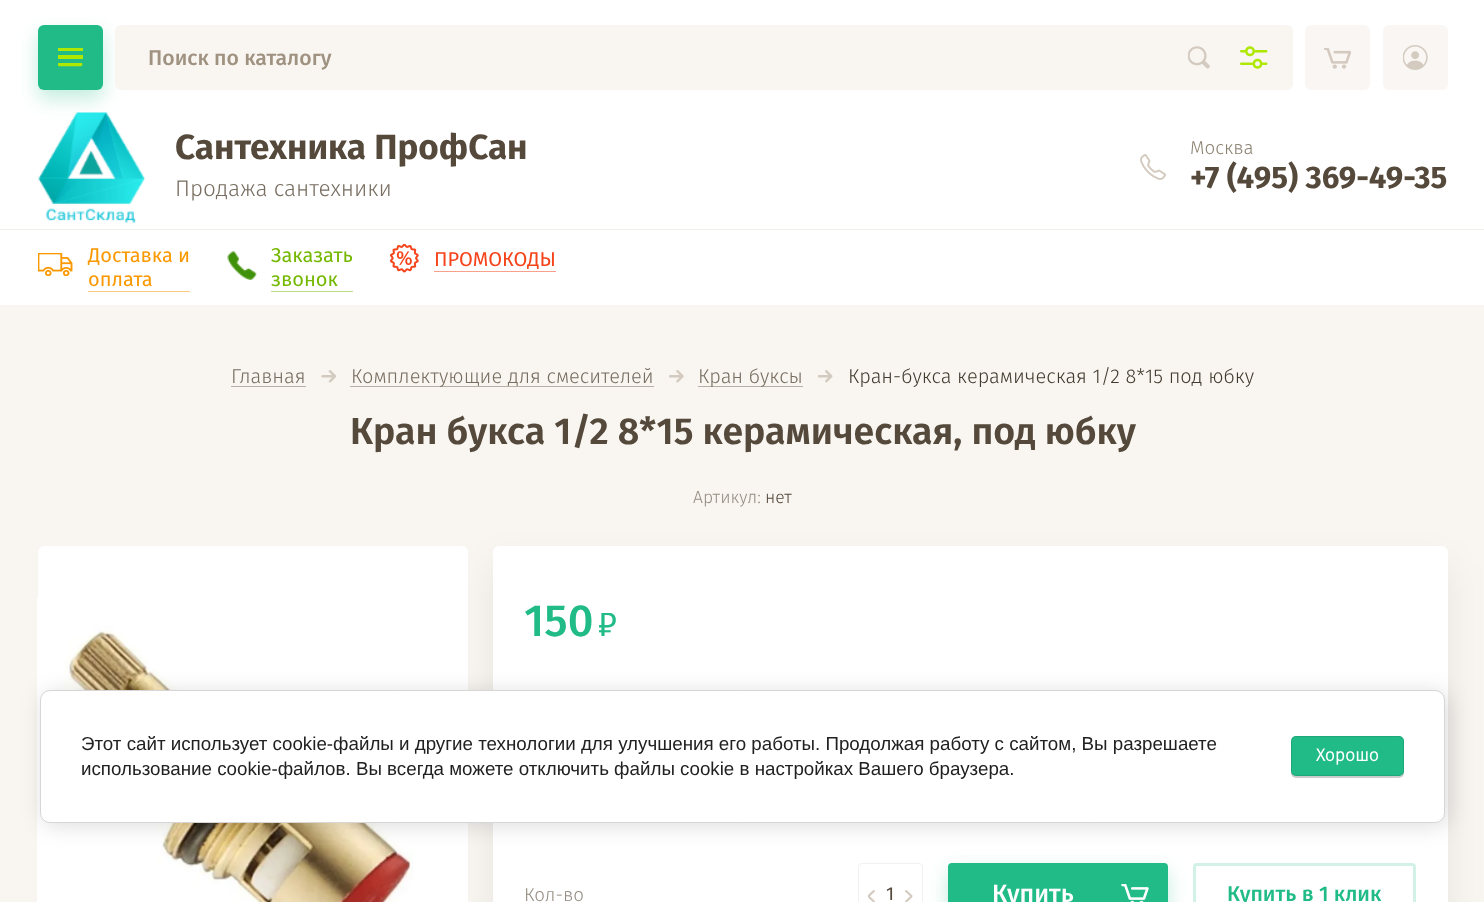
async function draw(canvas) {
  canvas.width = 1484;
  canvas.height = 902;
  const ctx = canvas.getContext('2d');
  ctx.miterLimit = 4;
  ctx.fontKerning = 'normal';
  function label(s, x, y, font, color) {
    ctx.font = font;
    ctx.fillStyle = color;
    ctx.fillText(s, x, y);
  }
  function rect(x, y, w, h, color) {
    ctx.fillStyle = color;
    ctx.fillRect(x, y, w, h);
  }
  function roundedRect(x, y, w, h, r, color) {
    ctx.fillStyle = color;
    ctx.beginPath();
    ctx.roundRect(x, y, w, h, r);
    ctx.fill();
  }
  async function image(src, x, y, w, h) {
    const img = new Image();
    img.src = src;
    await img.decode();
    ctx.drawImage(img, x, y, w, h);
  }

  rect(0, 0, 1484, 902, '#f9f6f2');
  rect(0, 0, 1484, 305, '#fff');
  await image('assets/img6.png', 37, 112, 109, 111);
  ctx.fillStyle = '#20bb8645';
  ctx.filter = 'blur(9.5px)';
  ctx.beginPath();
  ctx.roundRect(38, 34, 65, 65, 6);
  ctx.fill();
  ctx.filter = 'none';
  roundedRect(38, 25, 65, 65, 6, '#20bb86');
  rect(58, 55, 25, 4, '#aee700');
  rect(58, 48, 25, 3, '#aee700');
  await image('assets/img1.png', 58, 63, 25, 4);
  roundedRect(115, 25, 1178, 65, 6, '#f9f6f2');
  label('Поиск по каталогу', 148, 65, '500 21.25px Fira Sans', '#9f9280');
  await image('assets/img2.png', 1188, 46, 22, 23);
  await image('assets/img3.png', 1240, 46, 28, 23);
  roundedRect(1305, 25, 65, 65, 6, '#faf6f3');
  await image('assets/img4.png', 1324, 48, 27, 21);
  roundedRect(1383, 25, 65, 65, 6, '#faf6f3');
  await image('assets/img5.png', 1403, 45, 25, 25);
  label('Сантехника ПрофСан', 175, 159, 'bold 35px Fira Sans', '#54493b');
  label('Продажа сантехники', 175, 196, '300 22.5px Fira Sans', '#776d60');
  label('Москва', 1190, 154, '300 18.75px Fira Sans', '#8c8171');
  await image('assets/img7.png', 1140, 154, 26, 26);
  label('+7 (495) 369-49-35', 1190, 188, 'bold 31.25px Fira Sans', '#54493b');
  rect(0, 229, 1484, 1, '#f1eee9');
  await image('assets/img8.png', 38, 253, 35, 23);
  rect(88, 291, 102, 1, '#fdcc80');
  label('Доставка и', 88, 262, '20px Fira Sans', '#fa9800');
  label('оплата', 88, 286, '20px Fira Sans', '#fa9800');
  await image('assets/img9.png', 227, 251, 30, 29);
  rect(271, 291, 82, 1, '#badc80');
  label('Заказать', 271, 262, '20px Fira Sans', '#75b800');
  label('звонок', 271, 286, '20px Fira Sans', '#75b800');
  await image('assets/img10.png', 390, 244, 29, 29);
  rect(434, 271, 122, 1, '#faa18d');
  label('ПРОМОКОДЫ', 434, 266, '20px Fira Sans', '#f5431a');
  rect(231, 386, 75, 1, '#b5afa6');
  label('Главная', 231, 383, '300 20px Fira Sans', '#776d60');
  await image('assets/img11.png', 321, 370, 15, 13);
  rect(350, 386, 304, 1, '#b5afa6');
  label('Комплектующие для смесителей', 351, 383, '300 20px Fira Sans', '#776d60');
  await image('assets/img12.png', 669, 370, 15, 13);
  rect(698, 386, 105, 1, '#b5afa6');
  label('Кран буксы', 698, 383, '300 20px Fira Sans', '#776d60');
  await image('assets/img13.png', 818, 370, 15, 13);
  label('Кран-букса керамическая 1/2 8*15 под юбку', 848, 383, '300 20px Fira Sans', '#423a2e');
  label('Кран букса 1/2 8*15 керамическая, под юбку', 350, 444, '600 37.5px Fira Sans', '#54493b');
  label('Артикул:', 693, 503, '300 17.5px Fira Sans', '#958d83');
  label('нет', 765, 503, '300 17.5px Fira Sans', '#54493b');
  ctx.fillStyle = '#00000012';
  ctx.filter = 'blur(19px)';
  ctx.beginPath();
  ctx.roundRect(493, 565, 955, 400, 6);
  ctx.fill();
  ctx.filter = 'none';
  roundedRect(38, 546, 430, 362, 6, '#fff');
  await image('assets/img14.png', 37, 598, 377, 304);
  roundedRect(493, 546, 955, 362, 6, '#fff');
  label('150', 524, 636, '500 45px Fira Sans', '#20bb86');
  await image('assets/img15.png', 599, 613, 17, 23);
  label('Кол-во', 524, 901, '300 18.75px Fira Sans', '#958d83');
  ctx.beginPath();
  ctx.roundRect(858.5, 863.5, 64, 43, 3.5);
  ctx.strokeStyle = '#f3f1ed';
  ctx.stroke();
  await image('assets/img16.png', 868, 890, 7, 12);
  label('1', 886, 900, '18.75px Fira Sans', '#54493b');
  await image('assets/img17.png', 905, 890, 8, 12);
  ctx.beginPath();
  ctx.roundRect(1194.5, 864.5, 220, 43, 2.5);
  ctx.strokeStyle = '#d2f1e7';
  ctx.lineWidth = 3;
  ctx.stroke();
  ctx.fillStyle = '#20bb8645';
  ctx.filter = 'blur(9.5px)';
  ctx.beginPath();
  ctx.roundRect(948, 871, 220, 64, 4);
  ctx.fill();
  ctx.filter = 'none';
  roundedRect(948, 863, 220, 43, 4, '#20bb86');
  label('Купить', 992, 902, '500 25px Fira Sans', '#fff');
  await image('assets/img18.png', 1121, 884, 28, 18);
  label('Купить в 1 клик', 1227, 901, '500 21.25px Fira Sans', '#20bb86');
  ctx.fillStyle = '#00000024';
  ctx.filter = 'blur(11px)';
  ctx.beginPath();
  ctx.roundRect(43, 693, 1405, 132, 10);
  ctx.fill();
  ctx.filter = 'none';
  ctx.fillStyle = '#fff';
  ctx.beginPath();
  ctx.roundRect(40.5, 690.5, 1404, 132, 9.5);
  ctx.fill();
  ctx.strokeStyle = '#d6d6d6';
  ctx.lineWidth = 1;
  ctx.stroke();
  label('Этот сайт использует cookie-файлы и другие технологии для улучшения его работы. Продолжая работу с сайтом, Вы разрешаете', 81, 750, '18.75px Liberation Sans', '#212121');
  label('использование cookie-файлов. Вы всегда можете отключить файлы cookie в настройках Вашего браузера.', 81, 775, '18.75px Liberation Sans', '#212121');
  ctx.fillStyle = '#00000033';
  ctx.filter = 'blur(0.5px)';
  ctx.beginPath();
  ctx.roundRect(1291, 738, 113, 40, 5);
  ctx.fill();
  ctx.filter = 'none';
  roundedRect(1291, 736, 113, 40, 5, '#20bb86');
  ctx.beginPath();
  ctx.roundRect(1291.5, 736.5, 112, 39, 4.5);
  ctx.strokeStyle = '#0000001a';
  ctx.stroke();
  label('Хорошо', 1316, 761, 'bold 17.5px "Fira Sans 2"', '#fff');
}

draw(document.querySelector('canvas'));
